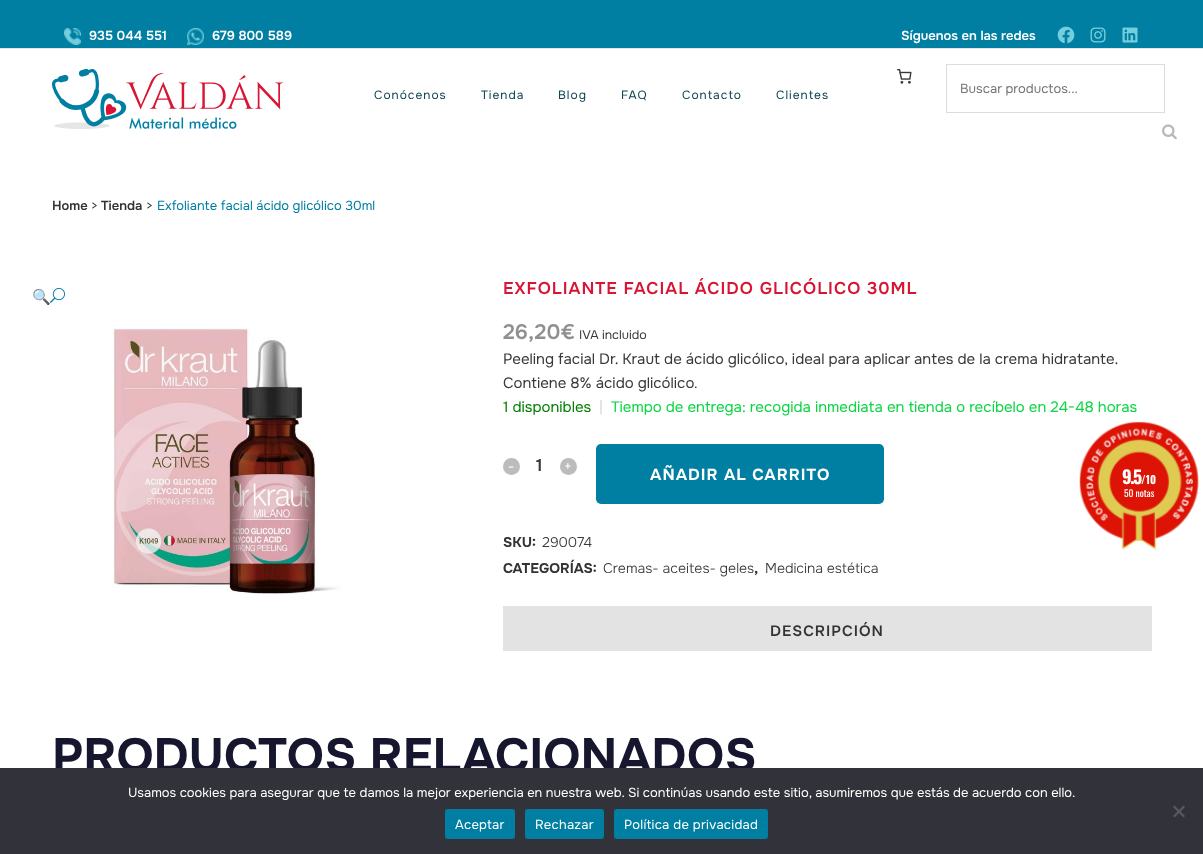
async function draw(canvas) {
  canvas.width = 1203;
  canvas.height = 854;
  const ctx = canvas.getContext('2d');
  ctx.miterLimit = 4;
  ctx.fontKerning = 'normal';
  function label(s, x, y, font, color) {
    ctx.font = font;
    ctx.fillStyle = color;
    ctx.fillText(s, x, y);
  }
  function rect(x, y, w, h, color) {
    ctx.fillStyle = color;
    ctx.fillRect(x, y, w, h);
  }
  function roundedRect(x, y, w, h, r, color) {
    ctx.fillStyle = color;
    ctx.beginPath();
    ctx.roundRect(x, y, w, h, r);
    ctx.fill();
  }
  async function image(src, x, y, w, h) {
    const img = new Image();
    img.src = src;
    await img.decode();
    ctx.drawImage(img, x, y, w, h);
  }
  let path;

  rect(0, 0, 1203, 854, '#fff');
  rect(0, 0, 1203, 48, '#007fa3');
  rect(0, 48, 1203, 1, '#e6e6e6');
  await image('assets/img1.png', 64, 28, 17, 17);
  label('935 044 551', 89, 40, '600 13px Onest', '#fff');
  await image('assets/img2.png', 187, 28, 17, 17);
  label('679 800 589', 212, 40, '600 13px Onest', '#fff');
  label('Síguenos en las redes', 901, 40, '600 13px Onest', '#fff');
  await image('assets/img3.png', 1057, 26, 18, 18);
  await image('assets/img4.png', 1090, 27, 16, 16);
  await image('assets/img5.png', 1122, 27, 16, 16);
  await image('assets/img6.png', 52, 69, 231, 60);
  ctx.letterSpacing = '1px';
  label('Conócenos', 374, 99, '12px Onest', '#053f4c');
  label('Tienda', 481, 99, '12px Onest', '#053f4c');
  label('Blog', 558, 99, '12px Onest', '#053f4c');
  label('FAQ', 621, 99, '12px Onest', '#053f4c');
  label('Contacto', 682, 99, '12px Onest', '#053f4c');
  label('Clientes', 776, 99, '12px Onest', '#053f4c');
  await image('assets/img7.png', 897, 69, 15, 15);
  ctx.strokeStyle = '#dcdcdc';
  ctx.strokeRect(946.5, 64.5, 218, 48);
  ctx.letterSpacing = '0px';
  label('Buscar productos...', 960, 93, '13px Onest', '#757575');
  await image('assets/img8.png', 1162, 124, 15, 16);
  label('Home', 52, 210, '600 13px Onest', '#333');
  label('>', 91, 210, '13px Onest', '#333');
  label('Tienda', 101, 210, '600 13px Onest', '#333');
  label('>', 146, 210, '13px Onest', '#333');
  label('Exfoliante facial ácido glicólico 30ml', 157, 210, '13px Onest', '#007fa3');
  label('🔍', 32, 302, 'bold 15px Noto Color Emoji', '#007fa3');
  await image('assets/img9.png', 50, 287, 15, 16);
  await image('assets/img10.png', 113, 328, 228, 267);
  ctx.letterSpacing = '1px';
  label('EXFOLIANTE FACIAL ÁCIDO GLICÓLICO 30ML', 503, 294, '600 17px Onest', '#d71433');
  ctx.letterSpacing = '0px';
  label('26,20€', 503, 339, '600 21px Onest', '#909090');
  label('IVA incluido', 579, 339, '12.5px Onest', '#393939');
  label('Peeling facial Dr. Kraut de ácido glicólico, ideal para aplicar antes de la crema hidratante.', 503, 364, '15px Onest', '#393939');
  label('Contiene 8% ácido glicólico', 503, 388, '15px Onest', '#393939');
  label('.', 694, 388, '14px Onest', '#393939');
  label('1 disponibles', 503, 412, '15px Onest', '#008000');
  label('|', 599, 412, '15px Onest', '#d9d9d9');
  label('Tiempo de entrega: recogida inmediata en tienda o recíbelo en 24-48 horas', 611, 412, '15px Onest', '#0bd544');
  ctx.fillStyle = '#bcbcbc';
  ctx.beginPath();
  ctx.arc(511.5, 466.5, 8.5, 0, 2 * Math.PI);
  ctx.fill();
  label('-', 508, 471, '14px Onest', '#fff');
  label('1', 536, 471, '600 17px Onest', '#393939');
  ctx.fillStyle = '#bcbcbc';
  ctx.beginPath();
  ctx.arc(568.5, 466.5, 8.5, 0, 2 * Math.PI);
  ctx.fill();
  label('+', 564, 471, '14px Onest', '#fff');
  roundedRect(596, 444, 288, 60, 5, '#007fa3');
  ctx.letterSpacing = '1px';
  label('AÑADIR AL CARRITO', 650, 480, 'bold 16px Onest', '#fff');
  ctx.letterSpacing = '0px';
  label('SKU:', 503, 547, 'bold 14px Onest', '#333');
  label('290074', 542, 547, '300 14px Onest', '#393939');
  label('CATEGORÍAS:', 503, 573, 'bold 14px Onest', '#333');
  label('Cremas- aceites- geles', 603, 573, '300 14px Onest', '#393939');
  label(',', 754, 573, 'bold 14px Onest', '#333');
  label('Medicina estética', 765, 573, '300 14px Onest', '#393939');
  rect(503, 606, 649, 45, '#e3e3e3');
  ctx.letterSpacing = '1px';
  label('DESCRIPCIÓN', 770, 636, '600 15px Onest', '#333');
  ctx.letterSpacing = '0px';
  label('PRODUCTOS RELACIONADOS', 52, 772, 'bold 48px Onest', '#16162e');
  await image('assets/img11.png', 1079, 421, 120, 129);
  ctx.letterSpacing = '-1.5px';
  label('9.5', 1122, 484, 'bold 18px Oswald', '#fff');
  ctx.letterSpacing = '0px';
  label('/10', 1141, 484, 'bold 11px Oswald', '#fff');
  label('50 notas', 1124, 497, '9.5px Oswald', '#fff');
  rect(0, 768, 1203, 86, '#32323a');
  label('Usamos cookies para asegurar que te damos la mejor experiencia en nuestra web. Si continúas usando este sitio, asumiremos que estás de acuerdo con ello.', 128, 797, '13px Onest', '#fff');
  ctx.fillStyle = '#59595d';
  path = new Path2D('M1183.5 805.5L1185 807L1174.5 817.5L1173 816Z');
  ctx.fill(path);
  path = new Path2D('M1173 807L1174.5 805.5L1185 816L1183.5 817.5Z');
  ctx.fill(path);
  roundedRect(445, 809, 70, 30, 3, '#007fa3');
  ctx.letterSpacing = '0.25px';
  label('Aceptar', 455, 829, '13px Onest', '#fff');
  roundedRect(525, 809, 79, 30, 3, '#007fa3');
  label('Rechazar', 535, 829, '13px Onest', '#fff');
  roundedRect(614, 809, 154, 30, 3, '#007fa3');
  label('Política de privacidad', 624, 829, '13px Onest', '#fff');
}

draw(document.querySelector('canvas'));
